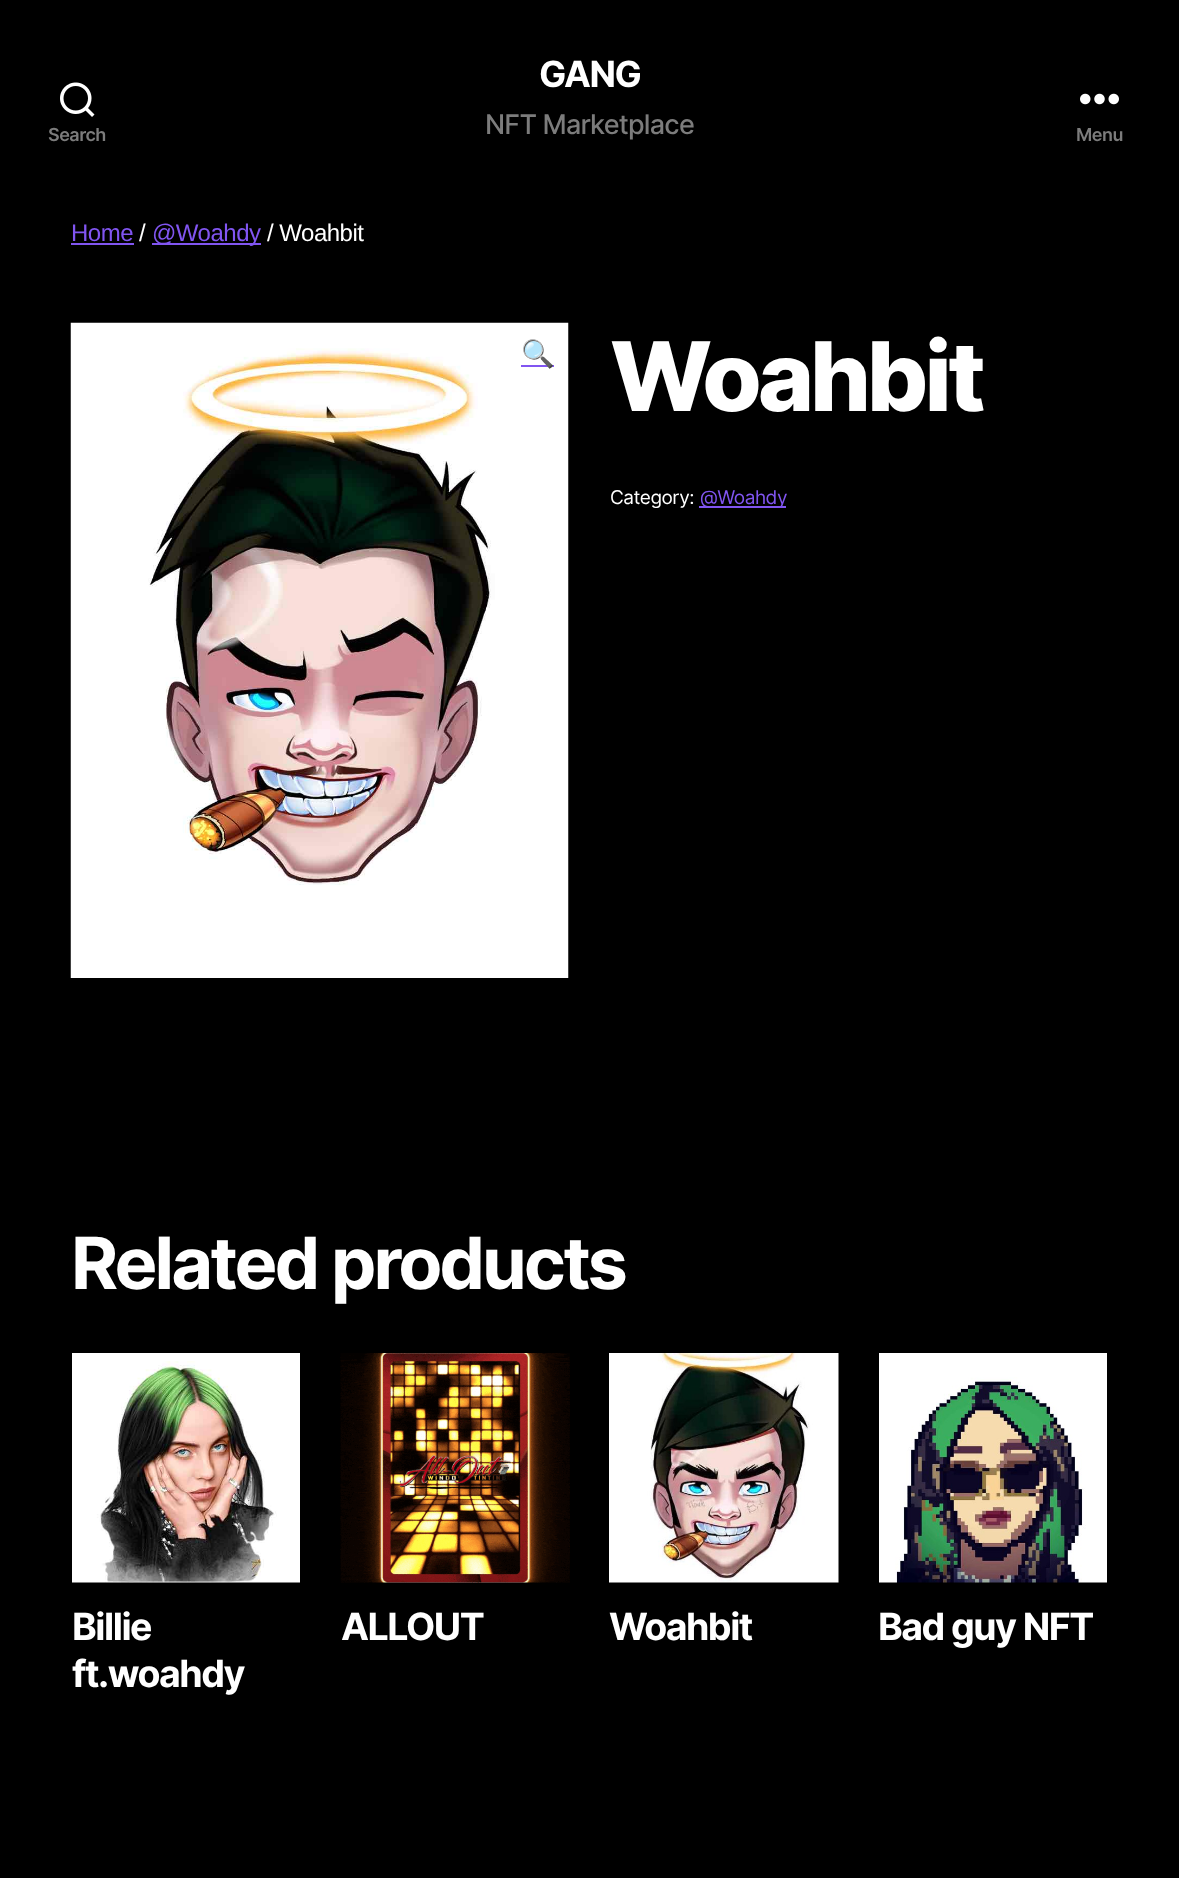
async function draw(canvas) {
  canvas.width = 1179;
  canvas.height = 1878;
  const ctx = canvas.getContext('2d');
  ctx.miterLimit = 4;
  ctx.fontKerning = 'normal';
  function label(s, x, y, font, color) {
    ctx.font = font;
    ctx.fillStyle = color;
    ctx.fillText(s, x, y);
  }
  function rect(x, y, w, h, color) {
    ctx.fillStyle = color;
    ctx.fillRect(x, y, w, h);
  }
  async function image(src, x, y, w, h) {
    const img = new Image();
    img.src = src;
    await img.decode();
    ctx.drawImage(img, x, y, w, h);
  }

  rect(0, 0, 1179, 1878, '#000');
  await image('assets/img1.png', 60, 82, 35, 35);
  ctx.letterSpacing = '-0.5px';
  label('Search', 48, 141, '600 18px Inter', '#7c7c7c');
  ctx.letterSpacing = '-1.5px';
  label('GANG', 539, 87, 'bold 36px Inter', '#fff');
  ctx.letterSpacing = '-0.8px';
  label('NFT Marketplace', 485, 134, '500 27px Inter', '#7c7c7c');
  await image('assets/img2.png', 1080, 93, 39, 12);
  ctx.letterSpacing = '-0.5px';
  label('Menu', 1076, 141, '600 18px Inter', '#7c7c7c');
  label('Home', 71, 241, '24px Liberation Sans', '#8155f1');
  rect(71, 243, 63, 2, '#8155f1');
  label('/', 139, 241, '24px Liberation Sans', '#fff');
  rect(152, 243, 109, 2, '#8155f1');
  label('@Woahdy', 152, 241, '24px Liberation Sans', '#8155f1');
  label('/ Woahbit', 267, 241, '24px Liberation Sans', '#fff');
  await image('assets/img3.png', 70, 322, 499, 656);
  rect(521, 365, 33, 2, '#8155f1');
  label('🔍', 521, 363, '27px Noto Color Emoji', '#8155f1');
  ctx.letterSpacing = '-4px';
  label('Woahbit', 610, 411, '800 96px Inter', '#fff');
  ctx.letterSpacing = '-0.5px';
  label('Category:', 610, 504, '19px Inter', '#fff');
  rect(699, 506, 87, 2, '#8155f1');
  label('@Woahdy', 700, 504, '19px Inter', '#8155f1');
  ctx.letterSpacing = '-3px';
  label('Related products', 71, 1289, 'bold 72px Inter', '#fff');
  await image('assets/img4.png', 72, 1353, 228, 230);
  ctx.letterSpacing = '-1.5px';
  label('Billie', 72, 1640, 'bold 37.5px Inter', '#fff');
  label('ft.woahdy', 72, 1687, 'bold 37.5px Inter', '#fff');
  await image('assets/img5.png', 340, 1353, 230, 230);
  label('ALLOUT', 341, 1640, 'bold 37.5px Inter', '#fff');
  await image('assets/img6.png', 609, 1353, 230, 230);
  label('Woahbit', 609, 1640, 'bold 37.5px Inter', '#fff');
  await image('assets/img7.png', 879, 1353, 228, 230);
  label('Bad guy NFT', 878, 1640, 'bold 37.5px Inter', '#fff');
}

draw(document.querySelector('canvas'));
